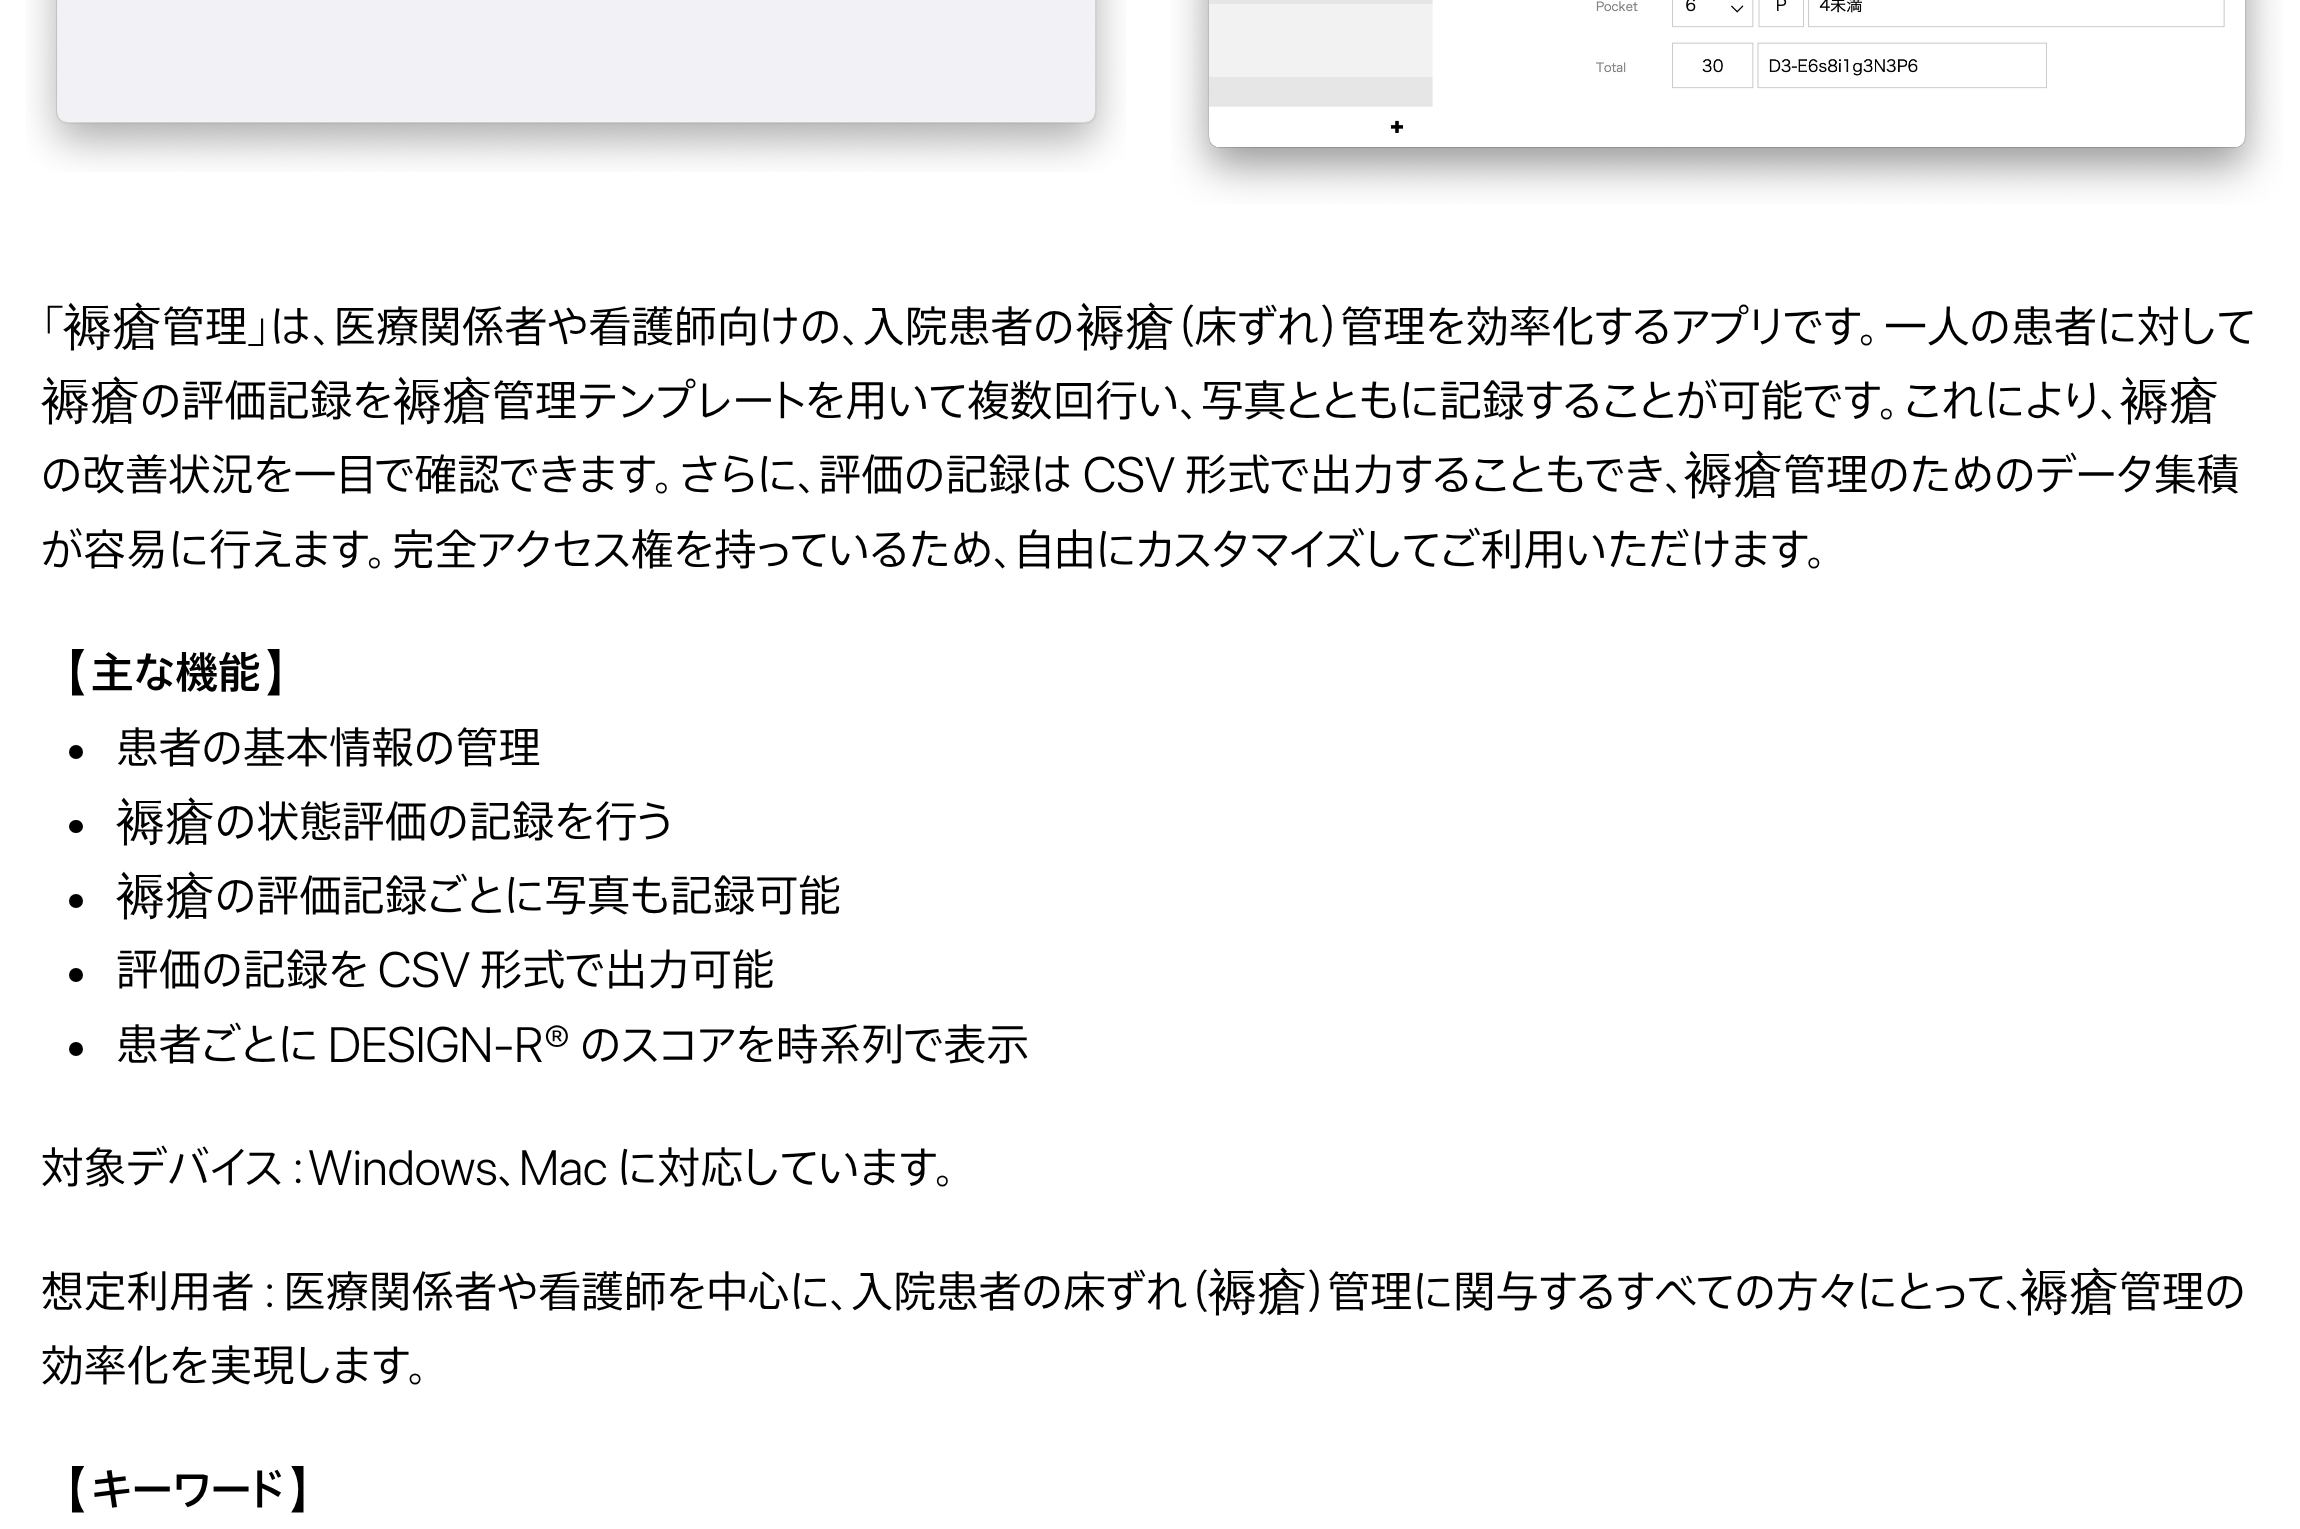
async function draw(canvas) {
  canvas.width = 2300;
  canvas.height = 1529;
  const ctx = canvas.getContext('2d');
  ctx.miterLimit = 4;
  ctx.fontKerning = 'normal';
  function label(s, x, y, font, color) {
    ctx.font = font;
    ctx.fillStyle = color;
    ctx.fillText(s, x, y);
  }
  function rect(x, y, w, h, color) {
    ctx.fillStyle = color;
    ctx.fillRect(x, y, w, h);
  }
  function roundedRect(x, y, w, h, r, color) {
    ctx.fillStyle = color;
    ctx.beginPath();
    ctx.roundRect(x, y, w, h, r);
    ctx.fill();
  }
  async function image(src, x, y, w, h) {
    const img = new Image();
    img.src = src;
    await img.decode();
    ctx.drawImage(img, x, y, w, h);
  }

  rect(0, 0, 2300, 1529, '#fff');
  await image('assets/img1.png', 26, 0, 1100, 172);
  await image('assets/img2.png', 1171, 0, 1112, 204);
  label('「', 41, 344, '300 49.5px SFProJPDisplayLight', '#000');
  label('褥瘡', 63, 344, '500 49.5px WenQuanYi Zen Hei', '#000');
  label('管理」は、医療関係者や看護師向けの、入院患者の', 162, 344, '300 49.5px SFProJPDisplayLight', '#000');
  label('褥瘡', 1076, 344, '500 49.5px WenQuanYi Zen Hei', '#000');
  label('（床ずれ）管理を効率化するアプリです。一人の患者に対して', 1175, 344, '300 49.5px SFProJPDisplayLight', '#000');
  label('褥瘡', 41, 418, '500 49.5px WenQuanYi Zen Hei', '#000');
  label('の評価記録を', 140, 418, '300 49.5px SFProJPDisplayLight', '#000');
  label('褥瘡', 393, 418, '500 49.5px WenQuanYi Zen Hei', '#000');
  label('管理テンプレートを用いて複数回行い、写真とともに記録することが可能です。これにより、', 492, 418, '300 49.5px SFProJPDisplayLight', '#000');
  label('褥瘡', 2120, 418, '500 49.5px WenQuanYi Zen Hei', '#000');
  label('の改善状況を一目で確認できます。さらに、評価の記録は', 41, 492, '300 49.5px SFProJPDisplayLight', '#000');
  label('CSV', 1083, 492, '300 49.5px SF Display', '#000');
  label('形式で出力することもでき、', 1185, 492, '300 49.5px SFProJPDisplayLight', '#000');
  label('褥瘡', 1684, 492, '500 49.5px WenQuanYi Zen Hei', '#000');
  label('管理のためのデータ集積', 1783, 492, '300 49.5px SFProJPDisplayLight', '#000');
  label('が容易に行えます。完全アクセス権を持っているため、自由にカスタマイズしてご利用いただけます。', 41, 567, '300 49.5px SFProJPDisplayLight', '#000');
  label('【', 41, 690, '500 49.5px WenQuanYi Zen Hei', '#000');
  label('主な機能', 91, 690, '500 49.5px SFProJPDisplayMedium', '#000');
  label('】', 261, 690, '500 49.5px WenQuanYi Zen Hei', '#000');
  ctx.beginPath();
  ctx.arc(76, 752, 7, 0, 2 * Math.PI);
  ctx.fill();
  label('患者の基本情報の管理', 116, 765, '300 49.5px SFProJPDisplayLight', '#000');
  roundedRect(69, 820, 14, 13, 6.5, '#000');
  label('褥瘡', 116, 839, '500 49.5px WenQuanYi Zen Hei', '#000');
  label('の状態評価の記録を行う', 215, 839, '300 49.5px SFProJPDisplayLight', '#000');
  ctx.beginPath();
  ctx.arc(76, 901, 7, 0, 2 * Math.PI);
  ctx.fill();
  label('褥瘡', 116, 913, '500 49.5px WenQuanYi Zen Hei', '#000');
  label('の評価記録ごとに写真も記録可能', 215, 913, '300 49.5px SFProJPDisplayLight', '#000');
  ctx.beginPath();
  ctx.arc(76, 975, 7, 0, 2 * Math.PI);
  ctx.fill();
  label('評価の記録を', 116, 987, '300 49.5px SFProJPDisplayLight', '#000');
  label('CSV', 378, 987, '300 49.5px SF Display', '#000');
  label('形式で出力可能', 480, 987, '300 49.5px SFProJPDisplayLight', '#000');
  ctx.beginPath();
  ctx.arc(76, 1049, 7, 0, 2 * Math.PI);
  ctx.fill();
  label('患者ごとに', 116, 1062, '300 49.5px SFProJPDisplayLight', '#000');
  label('DESIGN-R®', 328, 1062, '300 49.5px SF Display', '#000');
  label('のスコアを時系列で表示', 580, 1062, '300 49.5px SFProJPDisplayLight', '#000');
  label('対象デバイス：', 41, 1185, '300 49.5px SFProJPDisplayLight', '#000');
  label('Windows', 308, 1185, '300 49.5px SF Display', '#000');
  label('、', 498, 1185, '300 49.5px SFProJPDisplayLight', '#000');
  label('Mac', 519, 1185, '300 49.5px SF Display', '#000');
  label('に対応しています。', 617, 1185, '300 49.5px SFProJPDisplayLight', '#000');
  label('想定利用者：医療関係者や看護師を中心に、入院患者の床ずれ（', 41, 1309, '300 49.5px SFProJPDisplayLight', '#000');
  label('褥瘡', 1208, 1309, '500 49.5px WenQuanYi Zen Hei', '#000');
  label('）管理に関与するすべての方々にとって、', 1307, 1309, '300 49.5px SFProJPDisplayLight', '#000');
  label('褥瘡', 2020, 1309, '500 49.5px WenQuanYi Zen Hei', '#000');
  label('管理の', 2119, 1309, '300 49.5px SFProJPDisplayLight', '#000');
  label('効率化を実現します。', 41, 1383, '300 49.5px SFProJPDisplayLight', '#000');
  label('【', 41, 1507, '500 49.5px WenQuanYi Zen Hei', '#000');
  label('キーワード', 91, 1507, '500 49.5px SFProJPDisplayMedium', '#000');
  label('】', 285, 1507, '500 49.5px WenQuanYi Zen Hei', '#000');
}

draw(document.querySelector('canvas'));
